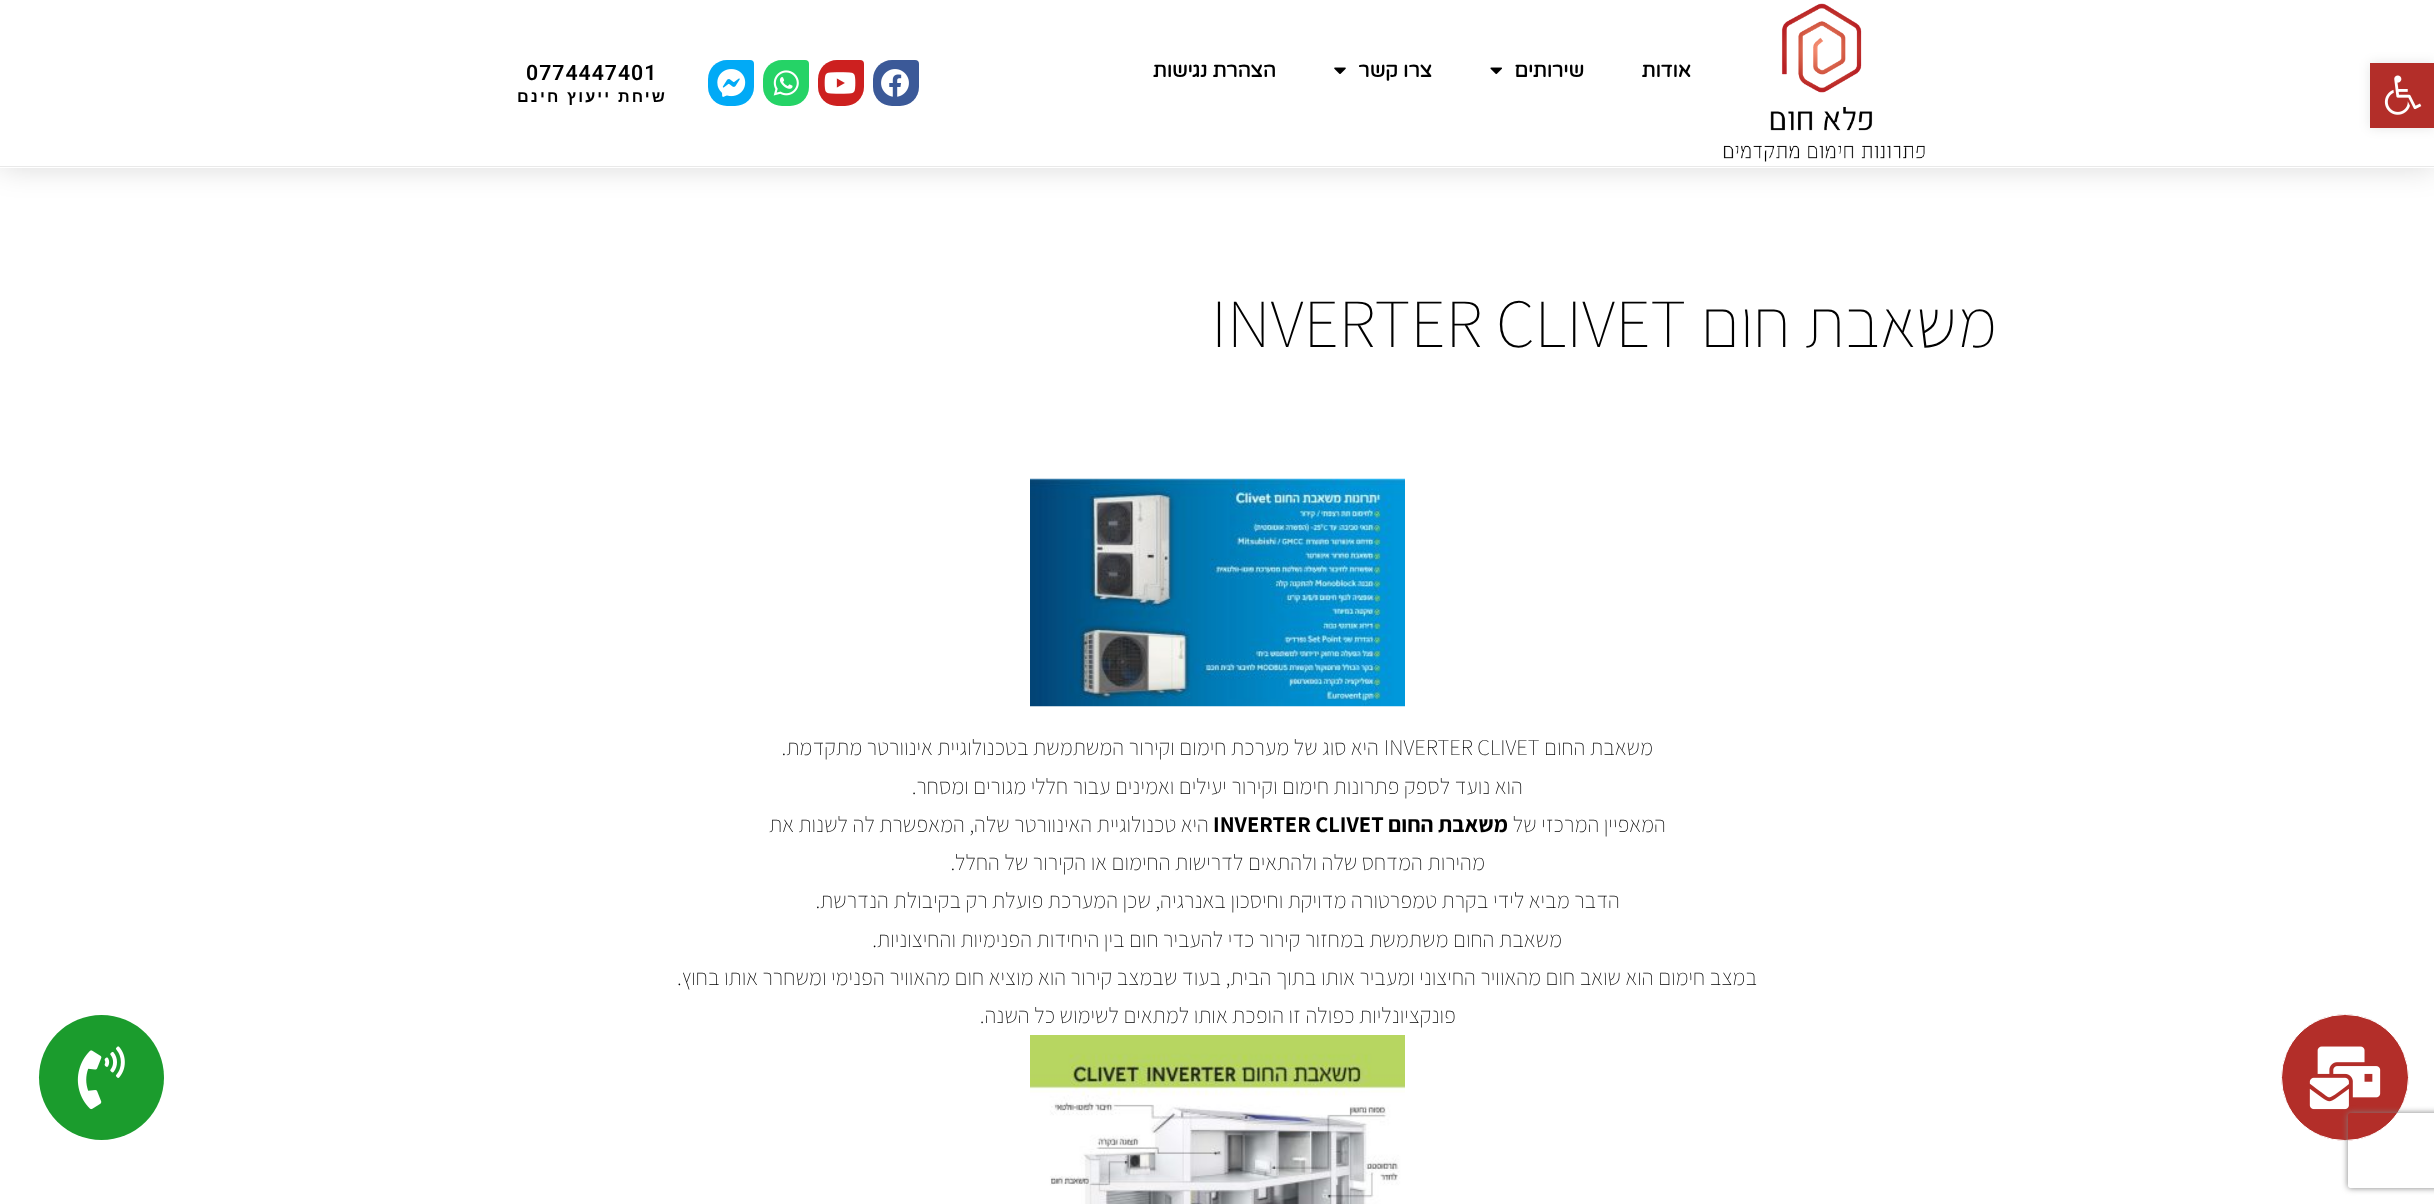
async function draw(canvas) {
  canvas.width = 2434;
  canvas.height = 1204;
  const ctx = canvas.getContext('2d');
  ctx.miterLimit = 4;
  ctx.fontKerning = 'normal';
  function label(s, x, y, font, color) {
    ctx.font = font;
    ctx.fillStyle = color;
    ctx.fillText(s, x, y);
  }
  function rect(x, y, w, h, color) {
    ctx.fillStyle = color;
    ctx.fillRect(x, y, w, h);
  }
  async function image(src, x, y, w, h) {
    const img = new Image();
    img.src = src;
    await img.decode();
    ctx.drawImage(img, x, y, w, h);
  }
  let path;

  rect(0, 0, 2434, 1204, '#fff');
  ctx.fillStyle = '#0000001a';
  ctx.filter = 'blur(6px)';
  ctx.beginPath();
  ctx.rect(2370, 63, 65, 65);
  ctx.fill();
  ctx.filter = 'none';
  ctx.save();
  path = new Path2D('M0 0H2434V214H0ZM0 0H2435V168H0Z');
  ctx.clip(path, 'evenodd');
  ctx.fillStyle = '#00000026';
  ctx.filter = 'blur(15px)';
  ctx.beginPath();
  ctx.rect(0, 0, 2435, 168);
  ctx.fill();
  ctx.filter = 'none';
  ctx.restore();
  rect(2370, 63, 64, 65, '#b32e29');
  await image('assets/img1.png', 2384, 75, 38, 40);
  rect(0, 166, 2434, 1, '#e9e9e9');
  await image('assets/img2.png', 1723, 3, 202, 159);
  ctx.direction = 'rtl';
  label('אודות', 1691, 77, 'bold 20px Varela Round', '#000');
  label('שירותים', 1584, 77, 'bold 20px Varela Round', '#000');
  await image('assets/img3.png', 1490, 67, 12, 8);
  label('צרו קשר', 1432, 77, 'bold 20px Varela Round', '#000');
  await image('assets/img4.png', 1334, 67, 12, 7);
  label('הצהרת נגישות', 1276, 77, 'bold 20px Varela Round', '#000');
  ctx.fillStyle = '#3b5998';
  ctx.beginPath();
  ctx.roundRect(873, 60, 46, 46, [19, 4, 19, 19]);
  ctx.fill();
  await image('assets/img5.png', 881, 69, 28, 28);
  ctx.fillStyle = '#cd201f';
  ctx.beginPath();
  ctx.roundRect(818, 60, 46, 46, [19, 4, 19, 19]);
  ctx.fill();
  await image('assets/img6.png', 824, 72, 32, 22);
  ctx.fillStyle = '#25d366';
  ctx.beginPath();
  ctx.roundRect(763, 60, 46, 46, [19, 4, 19, 19]);
  ctx.fill();
  await image('assets/img7.png', 773, 70, 26, 26);
  ctx.fillStyle = '#01aaf6';
  ctx.beginPath();
  ctx.roundRect(708, 60, 46, 46, [19, 4, 19, 19]);
  ctx.fill();
  await image('assets/img8.png', 717, 69, 29, 28);
  ctx.letterSpacing = '1px';
  ctx.direction = 'ltr';
  label('0774447401', 526, 80, '600 21.25px Roboto', '#000');
  ctx.letterSpacing = '2.1px';
  ctx.direction = 'rtl';
  label('שיחת ייעוץ חינם', 667, 102, 'bold 16.25px Liberation Sans', '#000');
  ctx.letterSpacing = '0px';
  label('משאבת חום', 1997, 347, '200 68.75px Assistant', '#000');
  ctx.direction = 'ltr';
  label('INVERTER CLIVET', 1211, 347, '200 68.75px Assistant', '#000');
  await image('assets/img9.png', 1030, 478, 375, 229);
  ctx.direction = 'rtl';
  label('משאבת החום', 1653, 755, '200 22.5px Assistant', '#000');
  ctx.direction = 'ltr';
  label('INVERTER CLIVET', 1384, 755, '200 22.5px Assistant', '#000');
  ctx.direction = 'rtl';
  label('היא סוג של מערכת חימום וקירור המשתמשת בטכנולוגיית אינוורטר מתקדמת.', 1379, 755, '200 22.5px Assistant', '#000');
  label('הוא נועד לספק פתרונות חימום וקירור יעילים ואמינים עבור חללי מגורים ומסחר.', 1523, 794, '200 22.5px Assistant', '#000');
  label('המאפיין המרכזי של', 1666, 832, '200 22.5px Assistant', '#000');
  label('משאבת החום', 1508, 832, 'bold 22.5px Assistant', '#000');
  ctx.direction = 'ltr';
  label('INVERTER CLIVET', 1213, 832, 'bold 22.5px Assistant', '#000');
  ctx.direction = 'rtl';
  label('היא טכנולוגיית האינוורטר שלה, המאפשרת לה לשנות את', 1209, 832, '200 22.5px Assistant', '#000');
  label('מהירות המדחס שלה ולהתאים לדרישות החימום או הקירור של החלל.', 1485, 870, '200 22.5px Assistant', '#000');
  label('הדבר מביא לידי בקרת טמפרטורה מדויקת וחיסכון באנרגיה, שכן המערכת פועלת רק בקיבולת הנדרשת.', 1620, 908, '200 22.5px Assistant', '#000');
  label('משאבת החום משתמשת במחזור קירור כדי להעביר חום בין היחידות הפנימיות והחיצוניות.', 1562, 947, '200 22.5px Assistant', '#000');
  label('במצב חימום הוא שואב חום מהאוויר החיצוני ומעביר אותו בתוך הבית, בעוד שבמצב קירור הוא מוציא חום מהאוויר הפנימי ומשחרר אותו בחוץ.', 1757, 985, '200 22.5px Assistant', '#000');
  label('פונקציונליות כפולה זו הופכת אותו למתאים לשימוש כל השנה.', 1456, 1023, '200 22.5px Assistant', '#000');
  await image('assets/img10.png', 1030, 1035, 375, 169);
  ctx.fillStyle = '#b32e29';
  ctx.beginPath();
  ctx.roundRect(2281.5, 1014.5, 127, 126, 63);
  ctx.fill();
  ctx.strokeStyle = '#fff';
  ctx.stroke();
  await image('assets/img11.png', 2309, 1046, 72, 64);
  ctx.fillStyle = '#1b9c2d';
  ctx.beginPath();
  ctx.arc(101.5, 1077.5, 62.5, 0, 2 * Math.PI);
  ctx.fill();
  await image('assets/img12.png', 77, 1046, 48, 64);
  ctx.save();
  path = new Path2D('M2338 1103H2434V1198H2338ZM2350.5 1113H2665.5C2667 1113 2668 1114 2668 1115.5V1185.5C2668 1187 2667 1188 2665.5 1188H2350.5C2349 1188 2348 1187 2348 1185.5V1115.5C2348 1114 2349 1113 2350.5 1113Z');
  ctx.clip(path, 'evenodd');
  ctx.fillStyle = '#808080';
  ctx.filter = 'blur(3px)';
  ctx.beginPath();
  ctx.roundRect(2348, 1113, 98, 75, 2.5);
  ctx.fill();
  ctx.filter = 'none';
  ctx.restore();
}

draw(document.querySelector('canvas'));
